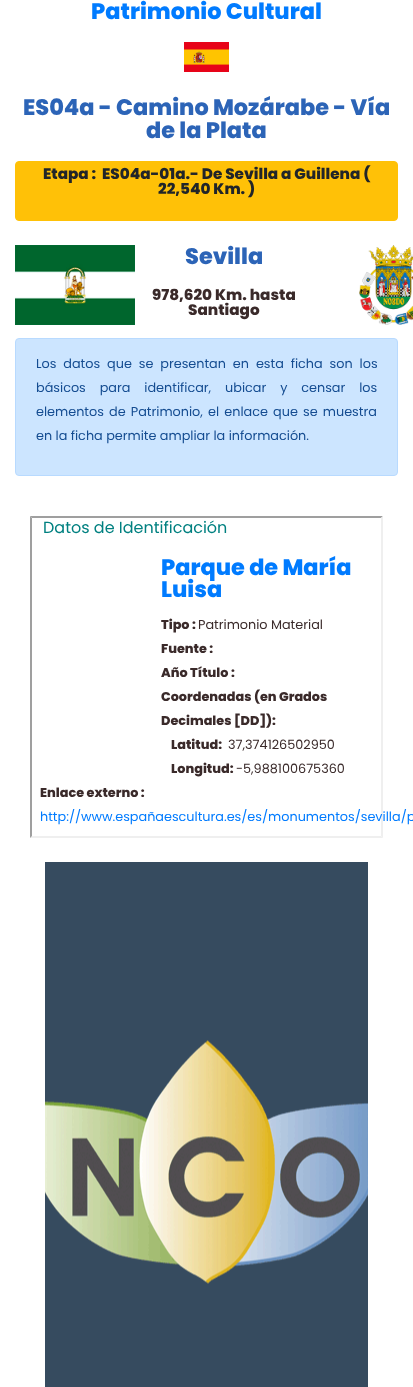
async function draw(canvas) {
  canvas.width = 413;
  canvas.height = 1387;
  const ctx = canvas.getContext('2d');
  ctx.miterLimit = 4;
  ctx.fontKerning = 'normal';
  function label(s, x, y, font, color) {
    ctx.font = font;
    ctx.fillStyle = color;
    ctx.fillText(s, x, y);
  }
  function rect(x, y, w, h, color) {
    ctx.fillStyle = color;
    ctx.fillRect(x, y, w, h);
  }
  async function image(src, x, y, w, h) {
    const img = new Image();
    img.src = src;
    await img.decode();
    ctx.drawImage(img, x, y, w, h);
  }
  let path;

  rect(0, 0, 413, 1387, '#fff');
  label('Patrimonio Cultural', 91, 19, '800 22.4px Poppins', '#007bff');
  await image('assets/img1.png', 184, 42, 45, 30);
  label('ES04a - Camino Mozárabe - Vía', 23, 115, '800 22.4px Poppins', '#2c64b7');
  label('de la Plata', 146, 138, '800 22.4px Poppins', '#2c64b7');
  ctx.fillStyle = '#ffc107';
  ctx.beginPath();
  ctx.roundRect(15.5, 161.5, 382, 59, 3.5);
  ctx.fill();
  ctx.strokeStyle = '#ffc107';
  ctx.stroke();
  label('Etapa :  ES04a-01a.- De Sevilla a Guillena (', 43, 179, '800 15.2px Poppins', '#212529');
  label('22,540 Km. )', 158, 194, '800 15.2px Poppins', '#212529');
  await image('assets/img2.png', 15, 245, 120, 80);
  label('Sevilla', 185, 264, '800 22.4px Poppins', '#2c64b7');
  label('978,620 Km. hasta', 152, 300, '800 15.2px Poppins', '#3a2a2a');
  label('Santiago', 188, 315, '800 15.2px Poppins', '#3a2a2a');
  await image('assets/img3.png', 359, 245, 54, 80);
  ctx.fillStyle = '#cce5ff';
  ctx.beginPath();
  ctx.roundRect(15.5, 338.5, 382, 137, 3.5);
  ctx.fill();
  ctx.strokeStyle = '#b8daff';
  ctx.stroke();
  ctx.wordSpacing = '3.5px';
  label('Los datos que se presentan en esta ficha son los', 36, 368, '12.8px Poppins', '#144c91');
  ctx.wordSpacing = '10.5px';
  label('básicos para identificar, ubicar y censar los', 36, 392, '12.8px Poppins', '#144c91');
  ctx.wordSpacing = '1.75px';
  label('elementos de Patrimonio, el enlace que se muestra', 36, 416, '12.8px Poppins', '#144c91');
  ctx.wordSpacing = '0px';
  label('en la ficha permite ampliar la información.', 36, 440, '12.8px Poppins', '#144c91');
  ctx.fillStyle = '#9f9f9f';
  path = new Path2D('M30 516H383L381 518H32Z');
  ctx.fill(path);
  ctx.fillStyle = '#efefef';
  path = new Path2D('M383 516V838L381 836V518Z');
  ctx.fill(path);
  path = new Path2D('M383 838H30L32 836H381Z');
  ctx.fill(path);
  ctx.fillStyle = '#9f9f9f';
  path = new Path2D('M30 838V516L32 518V836Z');
  ctx.fill(path);
  label('Datos de Identificación', 43, 533, '16px Poppins', '#008080');
  label('Parque de María', 161, 575, '800 22.4px Poppins', '#007bff');
  label('Luisa', 161, 597, '800 22.4px Poppins', '#007bff');
  label('Tipo :', 161, 629, '800 12.8px Poppins', '#3a2a2a');
  label('Patrimonio Material', 198, 629, '12.8px Poppins', '#3a2a2a');
  label('Fuente :', 161, 653, '800 12.8px Poppins', '#3a2a2a');
  label('Año Título :', 161, 677, '800 12.8px Poppins', '#3a2a2a');
  label('Coordenadas (en Grados', 161, 701, '800 12.8px Poppins', '#3a2a2a');
  label('Decimales [DD]):', 161, 725, '800 12.8px Poppins', '#3a2a2a');
  label('Latitud:', 171, 749, '800 12.8px Poppins', '#3a2a2a');
  label('37,374126502950', 228, 749, '12.8px Poppins', '#3a2a2a');
  label('Longitud:', 171, 773, '800 12.8px Poppins', '#3a2a2a');
  label('-5,988100675360', 236, 773, '12.8px Poppins', '#3a2a2a');
  label('Enlace externo :', 40, 797, '800 12.8px Poppins', '#3a2a2a');
  label('http://www.españaescultura.es/es/monumentos/sevilla/p', 40, 821, '12.8px Poppins', '#007bff');
  await image('assets/img4.png', 45, 862, 323, 525);
}

draw(document.querySelector('canvas'));
